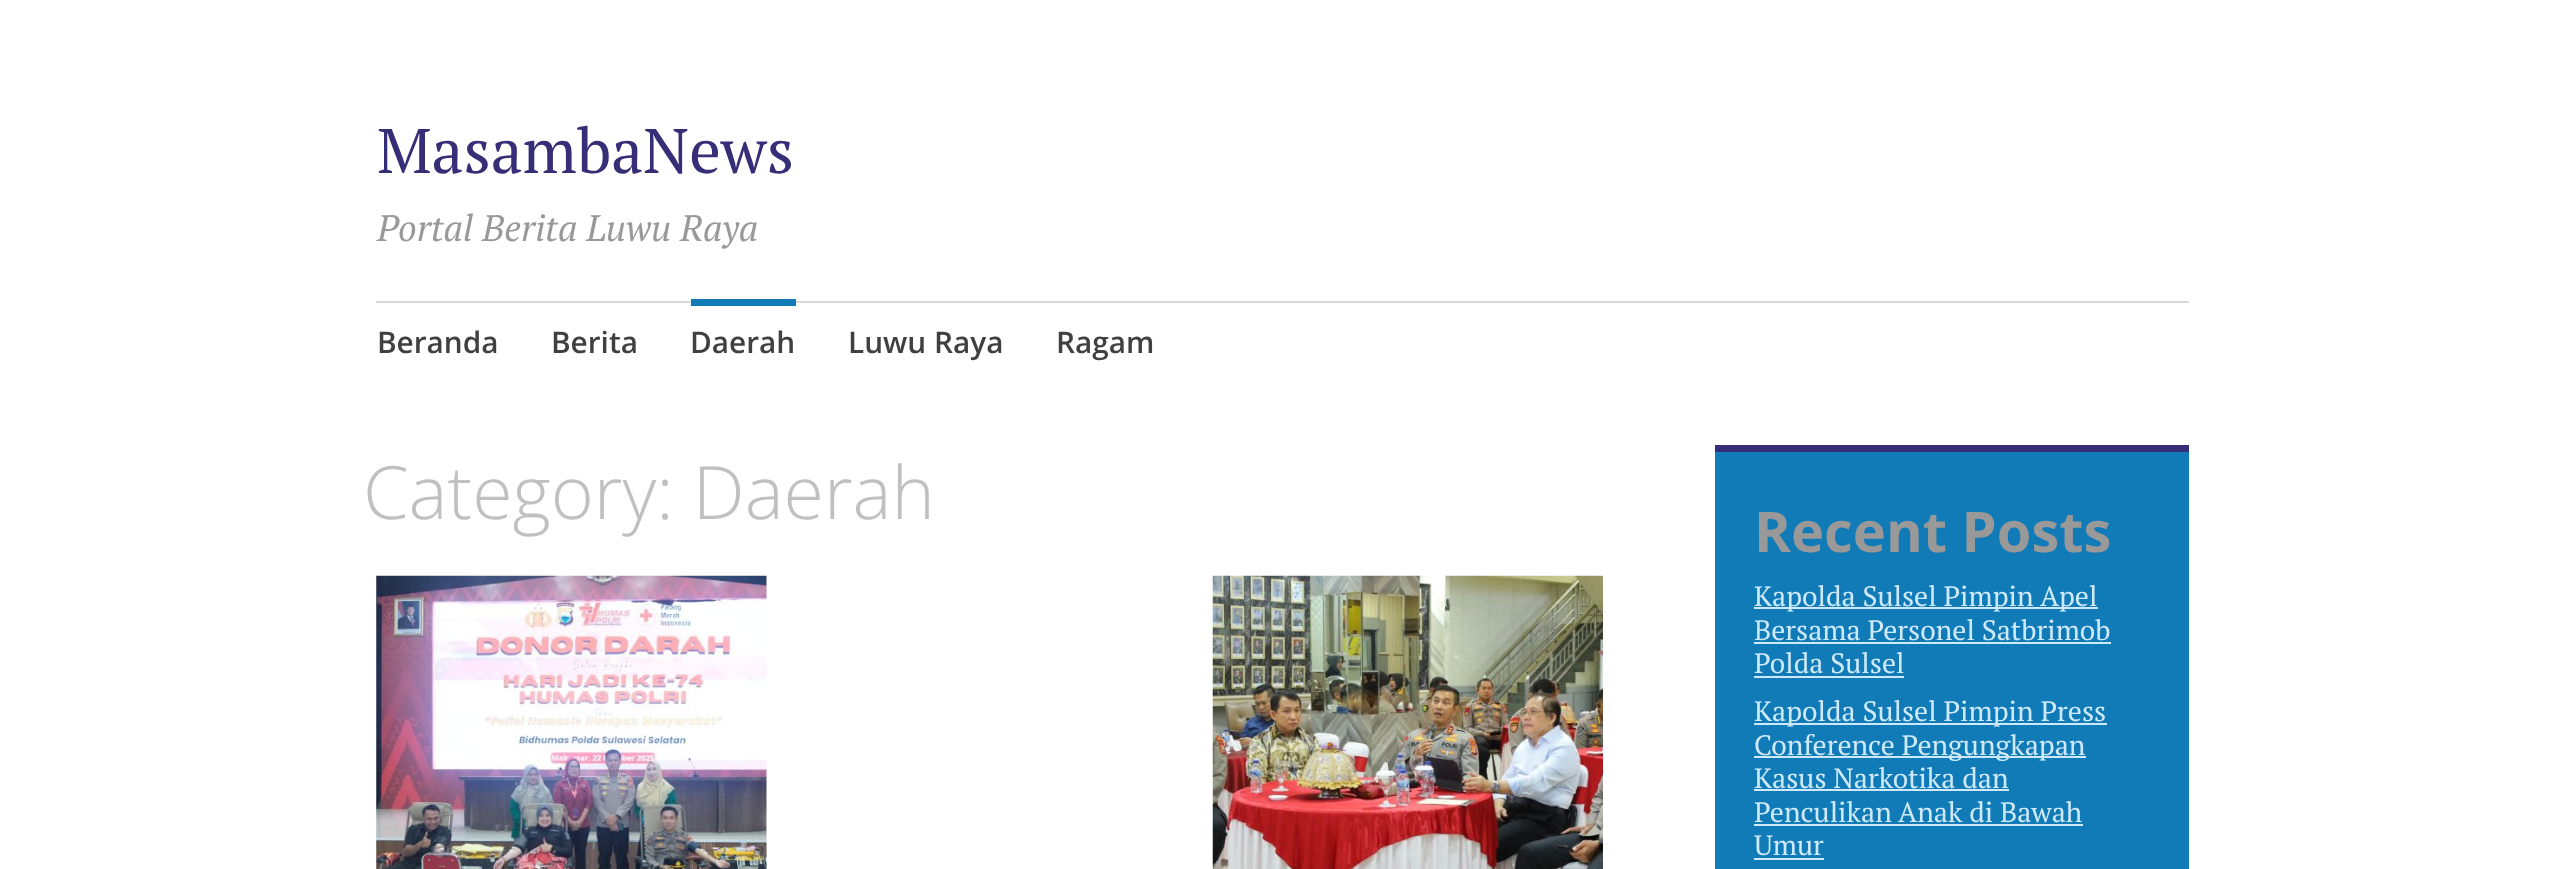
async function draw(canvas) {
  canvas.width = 2564;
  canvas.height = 869;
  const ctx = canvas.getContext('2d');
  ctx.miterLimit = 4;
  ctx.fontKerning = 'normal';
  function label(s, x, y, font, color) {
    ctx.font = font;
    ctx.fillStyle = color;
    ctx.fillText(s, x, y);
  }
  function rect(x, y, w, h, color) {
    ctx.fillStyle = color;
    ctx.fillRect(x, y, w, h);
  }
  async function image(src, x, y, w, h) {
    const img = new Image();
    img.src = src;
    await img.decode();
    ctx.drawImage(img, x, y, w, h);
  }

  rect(0, 0, 2564, 869, '#fff');
  label('MasambaNews', 377, 173, '63px PT Serif', '#362e77');
  label('Portal Berita Luwu Raya', 377, 241, 'italic 36.75px PT Serif', '#999');
  rect(376, 301, 1813, 2, '#d9d9d9');
  label('Beranda', 377, 353, '600 29.75px Open Sans', '#404040');
  label('Berita', 551, 353, '600 29.75px Open Sans', '#404040');
  rect(691, 299, 105, 7, '#117bb8');
  label('Daerah', 690, 353, '600 29.75px Open Sans', '#404040');
  label('Luwu Raya', 848, 353, '600 29.75px Open Sans', '#404040');
  label('Ragam', 1056, 353, '600 29.75px Open Sans', '#404040');
  label('Category: Daerah', 363, 519, '300 73.5px Open Sans', '#c0c0c0');
  await image('assets/img1.png', 376, 575, 391, 294);
  await image('assets/img2.png', 1212, 575, 391, 294);
  rect(1715, 452, 474, 417, '#117bb8');
  rect(1715, 445, 474, 7, '#362e77');
  label('Recent Posts', 1754, 552, 'bold 56px Open Sans', '#999');
  rect(1754, 607, 344, 2, '#ceeafa');
  label('Kapolda Sulsel Pimpin Apel', 1754, 606, '28px PT Serif', '#ceeafa');
  label('Bersama Personel Satbrimob', 1754, 640, '28px PT Serif', '#ceeafa');
  rect(1754, 642, 357, 2, '#ceeafa');
  label('Polda Sulsel', 1754, 673, '28px PT Serif', '#ceeafa');
  rect(1754, 676, 150, 2, '#ceeafa');
  rect(1754, 723, 353, 2, '#ceeafa');
  label('Kapolda Sulsel Pimpin Press', 1754, 721, '28px PT Serif', '#ceeafa');
  rect(1754, 756, 332, 2, '#ceeafa');
  label('Conference Pengungkapan', 1754, 755, '28px PT Serif', '#ceeafa');
  label('Kasus Narkotika dan', 1754, 788, '28px PT Serif', '#ceeafa');
  rect(1754, 789, 255, 2, '#ceeafa');
  label('Penculikan Anak di Bawah', 1754, 822, '28px PT Serif', '#ceeafa');
  rect(1754, 824, 329, 2, '#ceeafa');
  label('Umur', 1754, 855, '28px PT Serif', '#ceeafa');
  rect(1754, 858, 70, 2, '#ceeafa');
}

draw(document.querySelector('canvas'));
